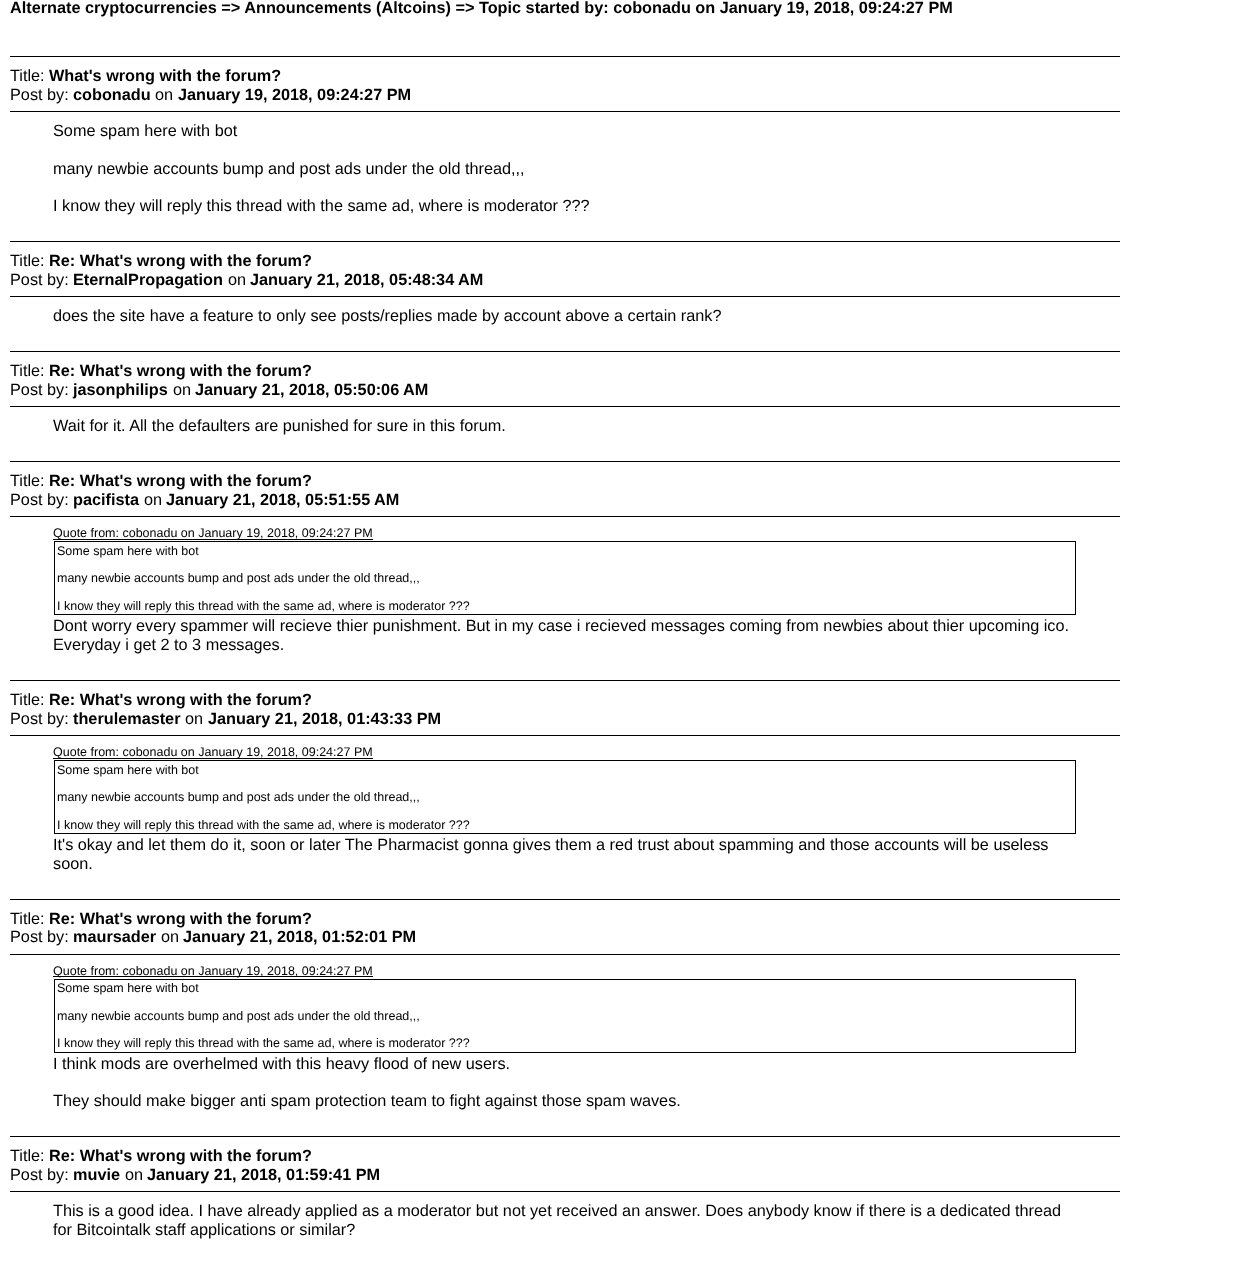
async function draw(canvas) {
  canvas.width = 1253;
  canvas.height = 1271;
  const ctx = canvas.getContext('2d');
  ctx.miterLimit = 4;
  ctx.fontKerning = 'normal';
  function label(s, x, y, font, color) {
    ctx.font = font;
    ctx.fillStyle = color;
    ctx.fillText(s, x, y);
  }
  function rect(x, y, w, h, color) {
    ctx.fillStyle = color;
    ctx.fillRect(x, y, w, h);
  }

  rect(0, 0, 1253, 1271, '#fff');
  label('Alternate cryptocurrencies => Announcements (Altcoins) => Topic started by: cobonadu on January 19, 2018, 09:24:27 PM', 10, 13, 'bold 16.25px Liberation Sans', '#000');
  rect(10, 56, 1110, 1, '#000');
  label('Title:', 10, 81, '16.25px Liberation Sans', '#000');
  label('What\'s wrong with the forum?', 49, 81, 'bold 16.25px Liberation Sans', '#000');
  label('Post by:', 10, 100, '16.25px Liberation Sans', '#000');
  label('cobonadu', 73, 100, 'bold 16.25px Liberation Sans', '#000');
  label('on', 155, 100, '16.25px Liberation Sans', '#000');
  label('January 19, 2018, 09:24:27 PM', 178, 100, 'bold 16.25px Liberation Sans', '#000');
  rect(10, 111, 1110, 1, '#000');
  label('Some spam here with bot', 53, 136, '16.25px Liberation Sans', '#000');
  label('many newbie accounts bump and post ads under the old thread,,,', 53, 174, '16.25px Liberation Sans', '#000');
  label('I know they will reply this thread with the same ad, where is moderator ???', 53, 211, '16.25px Liberation Sans', '#000');
  rect(10, 241, 1110, 1, '#000');
  label('Title:', 10, 266, '16.25px Liberation Sans', '#000');
  label('Re: What\'s wrong with the forum?', 49, 266, 'bold 16.25px Liberation Sans', '#000');
  label('Post by:', 10, 285, '16.25px Liberation Sans', '#000');
  label('EternalPropagation', 73, 285, 'bold 16.25px Liberation Sans', '#000');
  label('on', 228, 285, '16.25px Liberation Sans', '#000');
  label('January 21, 2018, 05:48:34 AM', 250, 285, 'bold 16.25px Liberation Sans', '#000');
  rect(10, 296, 1110, 1, '#000');
  label('does the site have a feature to only see posts/replies made by account above a certain rank?', 53, 321, '16.25px Liberation Sans', '#000');
  rect(10, 351, 1110, 1, '#000');
  label('Title:', 10, 376, '16.25px Liberation Sans', '#000');
  label('Re: What\'s wrong with the forum?', 49, 376, 'bold 16.25px Liberation Sans', '#000');
  label('Post by:', 10, 395, '16.25px Liberation Sans', '#000');
  label('jasonphilips', 73, 395, 'bold 16.25px Liberation Sans', '#000');
  label('on', 173, 395, '16.25px Liberation Sans', '#000');
  label('January 21, 2018, 05:50:06 AM', 195, 395, 'bold 16.25px Liberation Sans', '#000');
  rect(10, 406, 1110, 1, '#000');
  label('Wait for it. All the defaulters are punished for sure in this forum.', 53, 431, '16.25px Liberation Sans', '#000');
  rect(10, 461, 1110, 1, '#000');
  label('Title:', 10, 486, '16.25px Liberation Sans', '#000');
  label('Re: What\'s wrong with the forum?', 49, 486, 'bold 16.25px Liberation Sans', '#000');
  label('Post by:', 10, 505, '16.25px Liberation Sans', '#000');
  label('pacifista', 73, 505, 'bold 16.25px Liberation Sans', '#000');
  label('on', 144, 505, '16.25px Liberation Sans', '#000');
  label('January 21, 2018, 05:51:55 AM', 166, 505, 'bold 16.25px Liberation Sans', '#000');
  rect(10, 516, 1110, 1, '#000');
  rect(53, 539, 320, 1, '#000');
  label('Quote from: cobonadu on January 19, 2018, 09:24:27 PM', 53, 537, '12.5px Liberation Sans', '#000');
  ctx.strokeStyle = '#000';
  ctx.strokeRect(54.5, 541.5, 1021, 73);
  label('Some spam here with bot', 57, 555, '12.5px Liberation Sans', '#000');
  label('many newbie accounts bump and post ads under the old thread,,,', 57, 582, '12.5px Liberation Sans', '#000');
  label('I know they will reply this thread with the same ad, where is moderator ???', 57, 610, '12.5px Liberation Sans', '#000');
  label('Dont worry every spammer will recieve thier punishment. But in my case i recieved messages coming from newbies about thier upcoming ico.', 53, 631, '16.25px Liberation Sans', '#000');
  label('Everyday i get 2 to 3 messages.', 53, 650, '16.25px Liberation Sans', '#000');
  rect(10, 680, 1110, 1, '#000');
  label('Title:', 10, 705, '16.25px Liberation Sans', '#000');
  label('Re: What\'s wrong with the forum?', 49, 705, 'bold 16.25px Liberation Sans', '#000');
  label('Post by:', 10, 724, '16.25px Liberation Sans', '#000');
  label('therulemaster', 73, 724, 'bold 16.25px Liberation Sans', '#000');
  label('on', 185, 724, '16.25px Liberation Sans', '#000');
  label('January 21, 2018, 01:43:33 PM', 208, 724, 'bold 16.25px Liberation Sans', '#000');
  rect(10, 735, 1110, 1, '#000');
  rect(53, 758, 320, 1, '#000');
  label('Quote from: cobonadu on January 19, 2018, 09:24:27 PM', 53, 756, '12.5px Liberation Sans', '#000');
  ctx.strokeRect(54.5, 760.5, 1021, 73);
  label('Some spam here with bot', 57, 774, '12.5px Liberation Sans', '#000');
  label('many newbie accounts bump and post ads under the old thread,,,', 57, 801, '12.5px Liberation Sans', '#000');
  label('I know they will reply this thread with the same ad, where is moderator ???', 57, 829, '12.5px Liberation Sans', '#000');
  label('It\'s okay and let them do it, soon or later The Pharmacist gonna gives them a red trust about spamming and those accounts will be useless', 53, 850, '16.25px Liberation Sans', '#000');
  label('soon.', 53, 869, '16.25px Liberation Sans', '#000');
  rect(10, 899, 1110, 1, '#000');
  label('Title:', 10, 924, '16.25px Liberation Sans', '#000');
  label('Re: What\'s wrong with the forum?', 49, 924, 'bold 16.25px Liberation Sans', '#000');
  label('Post by:', 10, 942, '16.25px Liberation Sans', '#000');
  label('maursader', 73, 942, 'bold 16.25px Liberation Sans', '#000');
  label('on', 161, 942, '16.25px Liberation Sans', '#000');
  label('January 21, 2018, 01:52:01 PM', 183, 942, 'bold 16.25px Liberation Sans', '#000');
  rect(10, 954, 1110, 1, '#000');
  rect(53, 976, 320, 1, '#000');
  label('Quote from: cobonadu on January 19, 2018, 09:24:27 PM', 53, 975, '12.5px Liberation Sans', '#000');
  ctx.strokeRect(54.5, 979.5, 1021, 73);
  label('Some spam here with bot', 57, 992, '12.5px Liberation Sans', '#000');
  label('many newbie accounts bump and post ads under the old thread,,,', 57, 1020, '12.5px Liberation Sans', '#000');
  label('I know they will reply this thread with the same ad, where is moderator ???', 57, 1047, '12.5px Liberation Sans', '#000');
  label('I think mods are overhelmed with this heavy flood of new users.', 53, 1069, '16.25px Liberation Sans', '#000');
  label('They should make bigger anti spam protection team to fight against those spam waves.', 53, 1106, '16.25px Liberation Sans', '#000');
  rect(10, 1136, 1110, 1, '#000');
  label('Title:', 10, 1161, '16.25px Liberation Sans', '#000');
  label('Re: What\'s wrong with the forum?', 49, 1161, 'bold 16.25px Liberation Sans', '#000');
  label('Post by:', 10, 1180, '16.25px Liberation Sans', '#000');
  label('muvie', 73, 1180, 'bold 16.25px Liberation Sans', '#000');
  label('on', 125, 1180, '16.25px Liberation Sans', '#000');
  label('January 21, 2018, 01:59:41 PM', 147, 1180, 'bold 16.25px Liberation Sans', '#000');
  rect(10, 1191, 1110, 1, '#000');
  label('This is a good idea. I have already applied as a moderator but not yet received an answer. Does anybody know if there is a dedicated thread', 53, 1216, '16.25px Liberation Sans', '#000');
  label('for Bitcointalk staff applications or similar?', 53, 1235, '16.25px Liberation Sans', '#000');
}

draw(document.querySelector('canvas'));
